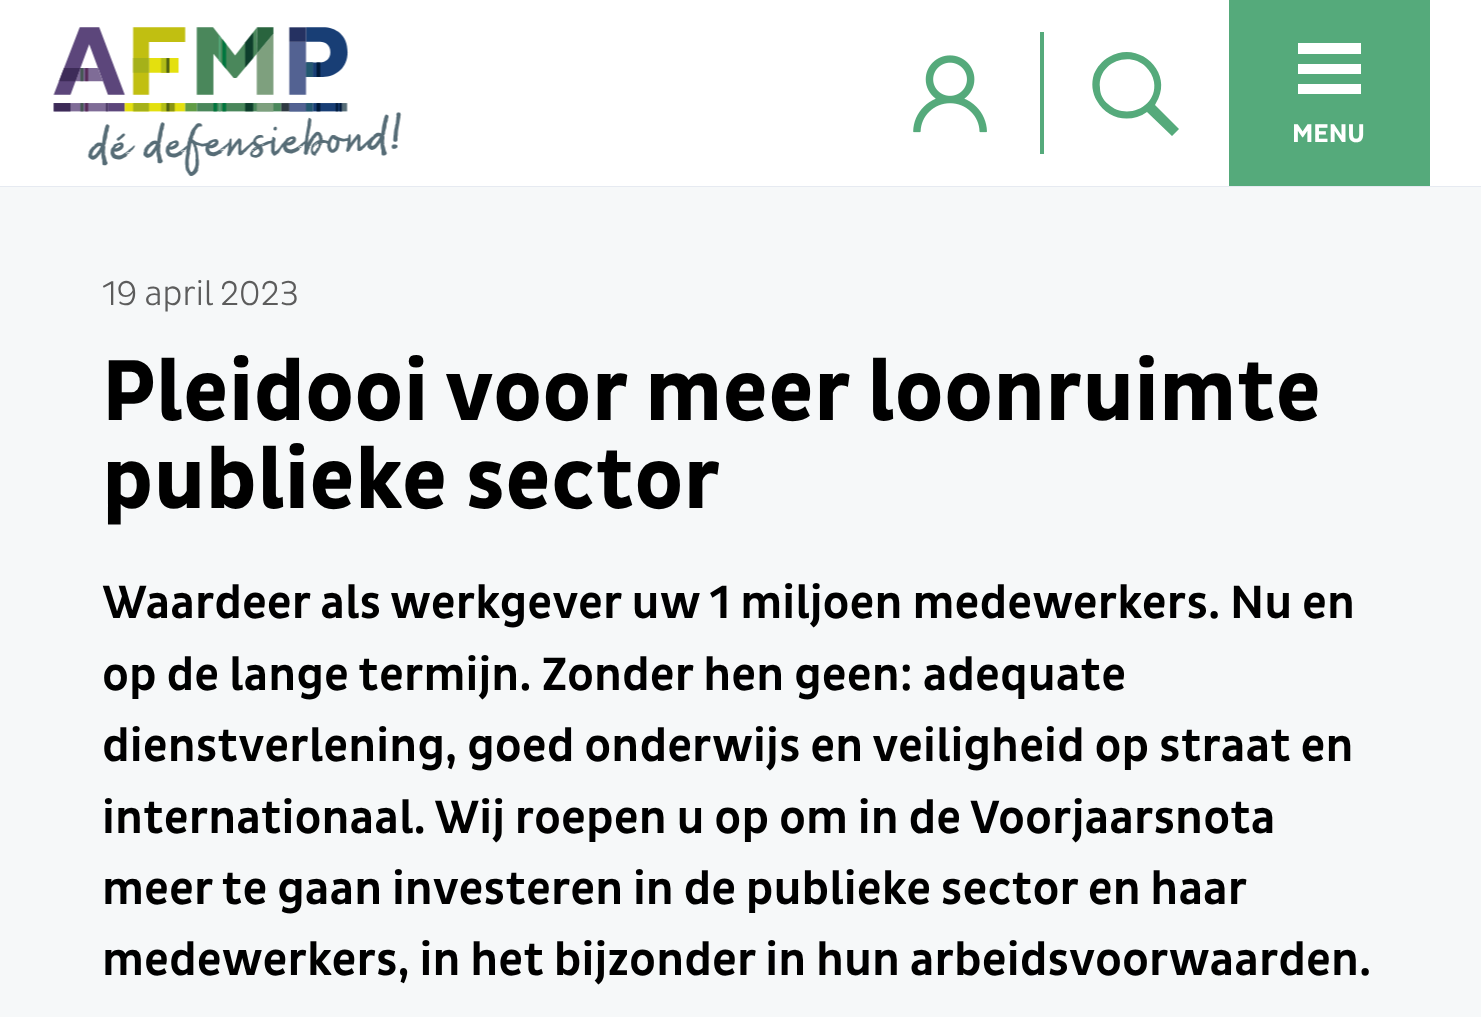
async function draw(canvas) {
  canvas.width = 1481;
  canvas.height = 1017;
  const ctx = canvas.getContext('2d');
  ctx.miterLimit = 4;
  ctx.fontKerning = 'normal';
  function label(s, x, y, font, color) {
    ctx.font = font;
    ctx.fillStyle = color;
    ctx.fillText(s, x, y);
  }
  function rect(x, y, w, h, color) {
    ctx.fillStyle = color;
    ctx.fillRect(x, y, w, h);
  }
  async function image(src, x, y, w, h) {
    const img = new Image();
    img.src = src;
    await img.decode();
    ctx.drawImage(img, x, y, w, h);
  }
  let path;

  rect(0, 0, 1481, 1017, '#f6f8f9');
  rect(0, 186, 1481, 1, '#e6eaf1');
  rect(0, 0, 1481, 186, '#fff');
  await image('assets/img1.png', 53, 27, 349, 149);
  await image('assets/img2.png', 913, 55, 74, 78);
  rect(1040, 32, 4, 122, '#55aa7b');
  path = new Path2D('M1156 103C1175 73 1139 39 1109 57C1102 61 1097 67 1094 74C1091 83 1092 93 1097 101C1107 119 1130 124 1147 112L1172 136L1179 129L1155 105ZM1146 67C1150 71 1153 76 1154 82C1158 107 1126 121 1108 104C1103 100 1100 94 1100 88C1097 63 1129 50 1146 67Z');
  ctx.fill(path);
  rect(1229, 0, 201, 186, '#55aa7b');
  ctx.fillStyle = '#fff';
  path = new Path2D('M1298 43H1361V54H1298ZM1298 64H1361V74H1298ZM1298 84H1361V94H1298Z');
  ctx.fill(path);
  label('MENU', 1292, 142, '26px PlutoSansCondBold', '#fff');
  label('19 april 2023', 102, 305, '35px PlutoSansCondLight', '#5c5c5c');
  label('Pleidooi voor meer loonruimte', 102, 420, '87.75px PlutoSansCondBold', '#000');
  label('publieke sector', 102, 508, '87.75px PlutoSansCondBold', '#000');
  label('Waardeer als werkgever uw 1 miljoen medewerkers. Nu en', 102, 618, '47.6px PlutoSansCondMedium', '#000');
  label('op de lange termijn. Zonder hen geen: adequate', 102, 690, '47.6px PlutoSansCondMedium', '#000');
  label('dienstverlening, goed onderwijs en veiligheid op straat en', 102, 761, '47.6px PlutoSansCondMedium', '#000');
  label('internationaal. Wij roepen u op om in de Voorjaarsnota', 102, 833, '47.6px PlutoSansCondMedium', '#000');
  ctx.wordSpacing = '-0.1px';
  label('meer te gaan investeren in de publieke sector en haar', 102, 904, '47.6px PlutoSansCondMedium', '#000');
  ctx.wordSpacing = '0px';
  label('medewerkers, in het bijzonder in hun arbeidsvoorwaarden.', 102, 975, '47.6px PlutoSansCondMedium', '#000');
}

draw(document.querySelector('canvas'));
